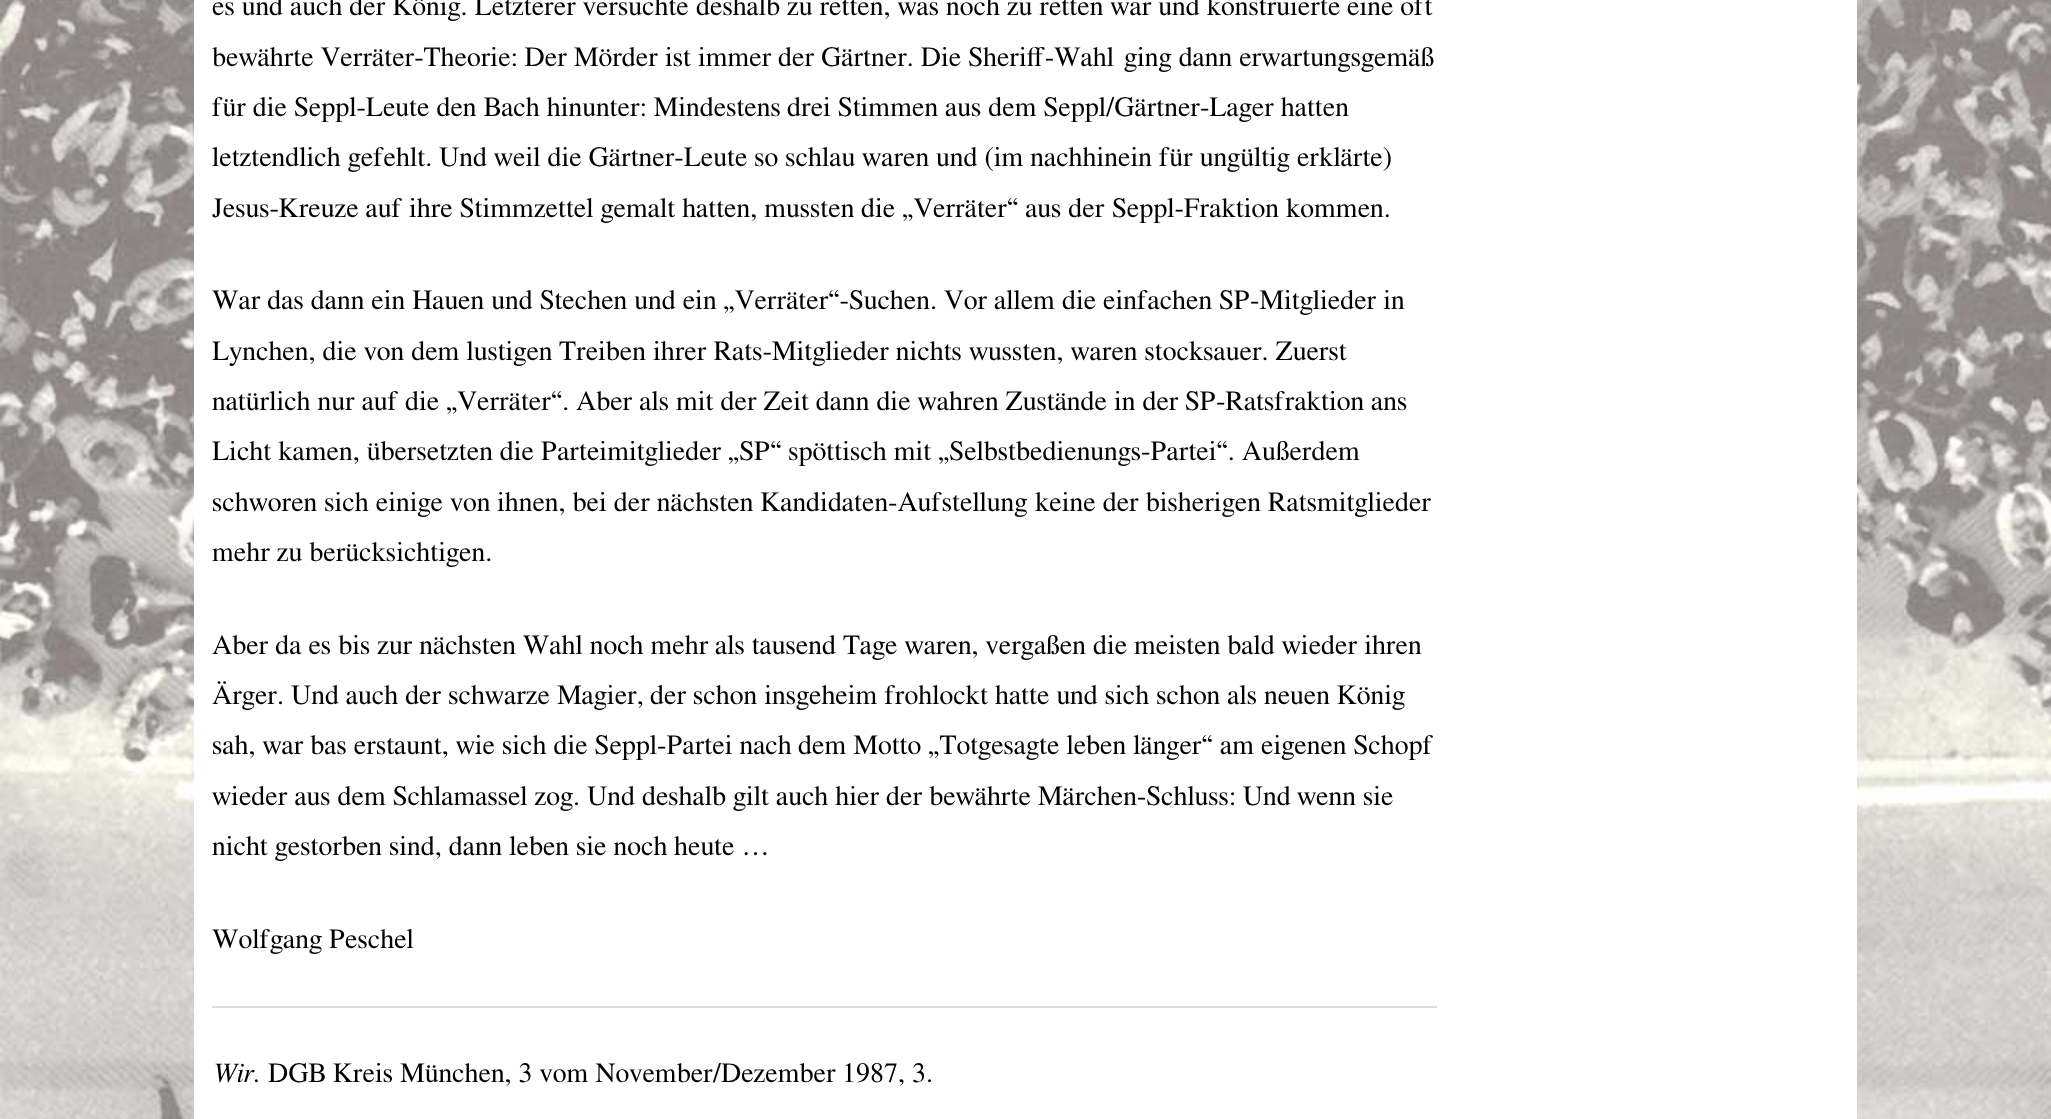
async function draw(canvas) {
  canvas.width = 2051;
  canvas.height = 1119;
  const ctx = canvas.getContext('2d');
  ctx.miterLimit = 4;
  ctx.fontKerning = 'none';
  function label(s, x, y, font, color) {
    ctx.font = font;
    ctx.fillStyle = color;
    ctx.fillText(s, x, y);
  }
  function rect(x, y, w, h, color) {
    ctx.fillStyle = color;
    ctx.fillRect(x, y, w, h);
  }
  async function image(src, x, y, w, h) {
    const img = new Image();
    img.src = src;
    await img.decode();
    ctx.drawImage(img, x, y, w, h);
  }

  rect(0, 0, 2051, 1119, '#fff');
  await image('assets/img1.png', 0, 0, 2051, 1119);
  rect(194, 0, 1663, 1119, '#fff');
  label('es und auch der König. Letzterer versuchte', 212, 15, '28px FreeSerif', '#000');
  label('deshalb zu retten, was noch zu retten war und konstruierte', 696, 15, '28px FreeSerif', '#000');
  label('eine oft', 1347, 15, '28px FreeSerif', '#000');
  label('bewährte Verräter-Theorie: Der Mörder ist immer', 212, 66, '28px FreeSerif', '#000');
  label('der Gärtner. Die Sheriff-Wahl', 778, 66, '28px FreeSerif', '#000');
  label('ging dann erwartungsgemäß', 1124, 66, '28px FreeSerif', '#000');
  label('für die Seppl-Leute den Bach hinunter: Mindestens', 212, 116, '28px FreeSerif', '#000');
  label('drei Stimmen aus dem Seppl/Gärtner-Lager hatten', 787, 116, '28px FreeSerif', '#000');
  label('letztendlich gefehlt.', 212, 166, '28px FreeSerif', '#000');
  label('Und weil die Gärtner-Leute so schlau waren', 439, 166, '28px FreeSerif', '#000');
  label('und (im nachhinein für ungültig erklärte)', 936, 166, '28px FreeSerif', '#000');
  label('Jesus-Kreuze auf ihre Stimmzettel gemalt hatten, mussten', 212, 217, '28px FreeSerif', '#000');
  label('die „Verräter“ aus der', 861, 217, '28px FreeSerif', '#000');
  label('Seppl-Fraktion kommen.', 1112, 217, '28px FreeSerif', '#000');
  label('War das dann ein Hauen und Stechen und ein „Verräter“-Suchen.', 212, 309, '28px FreeSerif', '#000');
  label('Vor allem die einfachen', 944, 309, '28px FreeSerif', '#000');
  label('SP-Mitglieder in', 1219, 309, '28px FreeSerif', '#000');
  label('Lynchen, die von dem lustigen', 212, 360, '28px FreeSerif', '#000');
  label('Treiben ihrer Rats-Mitglieder nichts', 559, 360, '28px FreeSerif', '#000');
  label('wussten, waren stocksauer. Zuerst', 969, 360, '28px FreeSerif', '#000');
  label('natürlich nur auf die „Verräter“.', 212, 410, '28px FreeSerif', '#000');
  label('Aber als mit der Zeit dann die wahren Zustände in der', 576, 410, '28px FreeSerif', '#000');
  label('SP-Ratsfraktion ans', 1185, 410, '28px FreeSerif', '#000');
  label('Licht kamen, übersetzten die Parteimitglieder', 212, 460, '28px FreeSerif', '#000');
  label('„SP“ spöttisch mit „Selbstbedienungs-Partei“. Außerdem', 728, 460, '28px FreeSerif', '#000');
  label('schworen sich einige von', 212, 511, '28px FreeSerif', '#000');
  label('ihnen, bei der nächsten Kandidaten-Aufstellung', 497, 511, '28px FreeSerif', '#000');
  label('keine der bisherigen Ratsmitglieder', 1035, 511, '28px FreeSerif', '#000');
  label('mehr zu berücksichtigen.', 212, 561, '28px FreeSerif', '#000');
  label('Aber da es bis zur nächsten Wahl noch mehr', 212, 654, '28px FreeSerif', '#000');
  label('als tausend Tage waren, vergaßen die', 715, 654, '28px FreeSerif', '#000');
  label('meisten bald wieder ihren', 1134, 654, '28px FreeSerif', '#000');
  label('Ärger. Und auch der schwarze Magier,', 212, 704, '28px FreeSerif', '#000');
  label('der schon insgeheim frohlockt', 650, 704, '28px FreeSerif', '#000');
  label('hatte und sich schon als neuen König', 995, 704, '28px FreeSerif', '#000');
  label('sah, war bas erstaunt, wie sich die Seppl-Partei nach', 212, 754, '28px FreeSerif', '#000');
  label('dem Motto „Totgesagte leben länger“', 798, 754, '28px FreeSerif', '#000');
  label('am eigenen Schopf', 1220, 754, '28px FreeSerif', '#000');
  label('wieder aus dem Schlamassel zog. Und deshalb gilt', 212, 805, '28px FreeSerif', '#000');
  label('auch hier der bewährte Märchen-Schluss: Und', 776, 805, '28px FreeSerif', '#000');
  label('wenn sie', 1297, 805, '28px FreeSerif', '#000');
  label('nicht gestorben sind, dann leben sie noch', 212, 855, '28px FreeSerif', '#000');
  label('heute …', 674, 855, '28px FreeSerif', '#000');
  label('Wolfgang Peschel', 212, 948, '28px FreeSerif', '#000');
  rect(212, 1006, 1225, 2, '#ddd');
  label('Wir.', 212, 1082, 'italic 28px FreeSerif', '#000');
  label('DGB Kreis München, 3 vom November/Dezember', 268, 1082, '28px FreeSerif', '#000');
  label('1987, 3.', 842, 1082, '28px FreeSerif', '#000');
}

draw(document.querySelector('canvas'));
